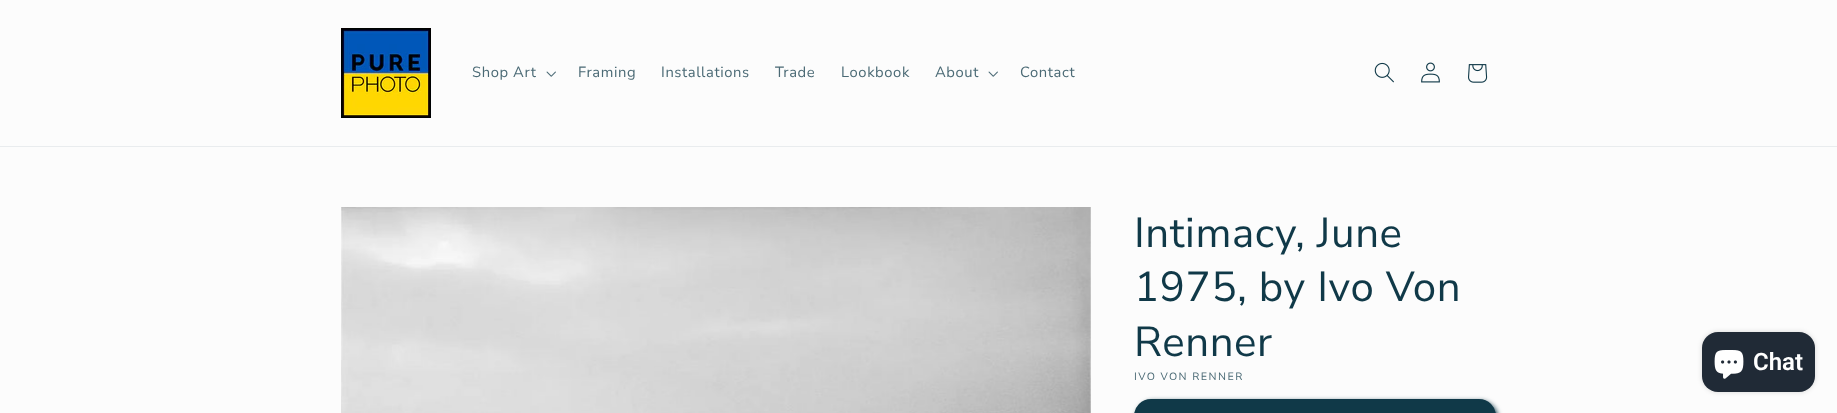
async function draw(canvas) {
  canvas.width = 1837;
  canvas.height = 413;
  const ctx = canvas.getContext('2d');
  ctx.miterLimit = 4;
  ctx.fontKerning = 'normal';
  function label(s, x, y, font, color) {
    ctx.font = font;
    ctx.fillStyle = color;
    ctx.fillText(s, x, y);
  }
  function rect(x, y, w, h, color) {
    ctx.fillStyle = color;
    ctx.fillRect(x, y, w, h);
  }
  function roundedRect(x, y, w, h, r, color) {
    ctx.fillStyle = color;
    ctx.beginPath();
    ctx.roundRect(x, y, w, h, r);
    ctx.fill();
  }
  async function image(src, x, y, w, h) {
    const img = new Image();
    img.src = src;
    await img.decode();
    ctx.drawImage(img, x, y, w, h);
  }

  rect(0, 0, 1837, 413, '#fcfcfc');
  rect(0, 146, 1837, 1, '#e9ecee');
  await image('assets/img1.png', 341, 28, 90, 90);
  ctx.letterSpacing = '0.6px';
  label('Shop Art', 472, 77, '14.75px Nunito Sans', '#4b6a75');
  await image('assets/img2.png', 546, 71, 10, 6);
  label('Framing', 578, 77, '14.75px Nunito Sans', '#4b6a75');
  label('Installations', 661, 77, '14.75px Nunito Sans', '#4b6a75');
  label('Trade', 775, 77, '14.75px Nunito Sans', '#4b6a75');
  label('Lookbook', 841, 77, '14.75px Nunito Sans', '#4b6a75');
  label('About', 935, 77, '14.75px Nunito Sans', '#4b6a75');
  await image('assets/img2.png', 988, 71, 10, 6);
  label('Contact', 1020, 77, '14.75px Nunito Sans', '#4b6a75');
  await image('assets/img3.png', 1374, 62, 20, 21);
  await image('assets/img4.png', 1421, 62, 19, 21);
  await image('assets/img5.png', 1468, 64, 20, 19);
  await image('assets/img6.png', 341, 207, 750, 206);
  label('Intimacy, June', 1134, 247, '42px Nunito Sans', '#103948');
  label('1975, by Ivo Von', 1134, 301, '42px Nunito Sans', '#103948');
  label('Renner', 1134, 356, '42px Nunito Sans', '#103948');
  ctx.letterSpacing = '1.4px';
  label('IVO VON RENNER', 1134, 380, '10.5px "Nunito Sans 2"', '#4b6a75');
  ctx.fillStyle = '#103948';
  ctx.filter = 'blur(2.5px)';
  ctx.beginPath();
  ctx.roundRect(1136, 401, 362, 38, 18);
  ctx.fill();
  ctx.filter = 'none';
  ctx.beginPath();
  ctx.roundRect(1135, 400, 360, 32, 17);
  ctx.fill();
  ctx.strokeStyle = '#103948';
  ctx.lineWidth = 2;
  ctx.stroke();
  ctx.fillStyle = '#00000026';
  ctx.filter = 'blur(2.5px)';
  ctx.beginPath();
  ctx.roundRect(1702, 332, 113, 60, 16);
  ctx.fill();
  ctx.filter = 'none';
  roundedRect(1702, 332, 113, 60, 16, '#202a36');
  await image('assets/img7.png', 1714, 350, 30, 29);
  ctx.letterSpacing = '0px';
  label('Chat', 1753, 370, '600 24px Roboto', '#fff');
}

draw(document.querySelector('canvas'));
